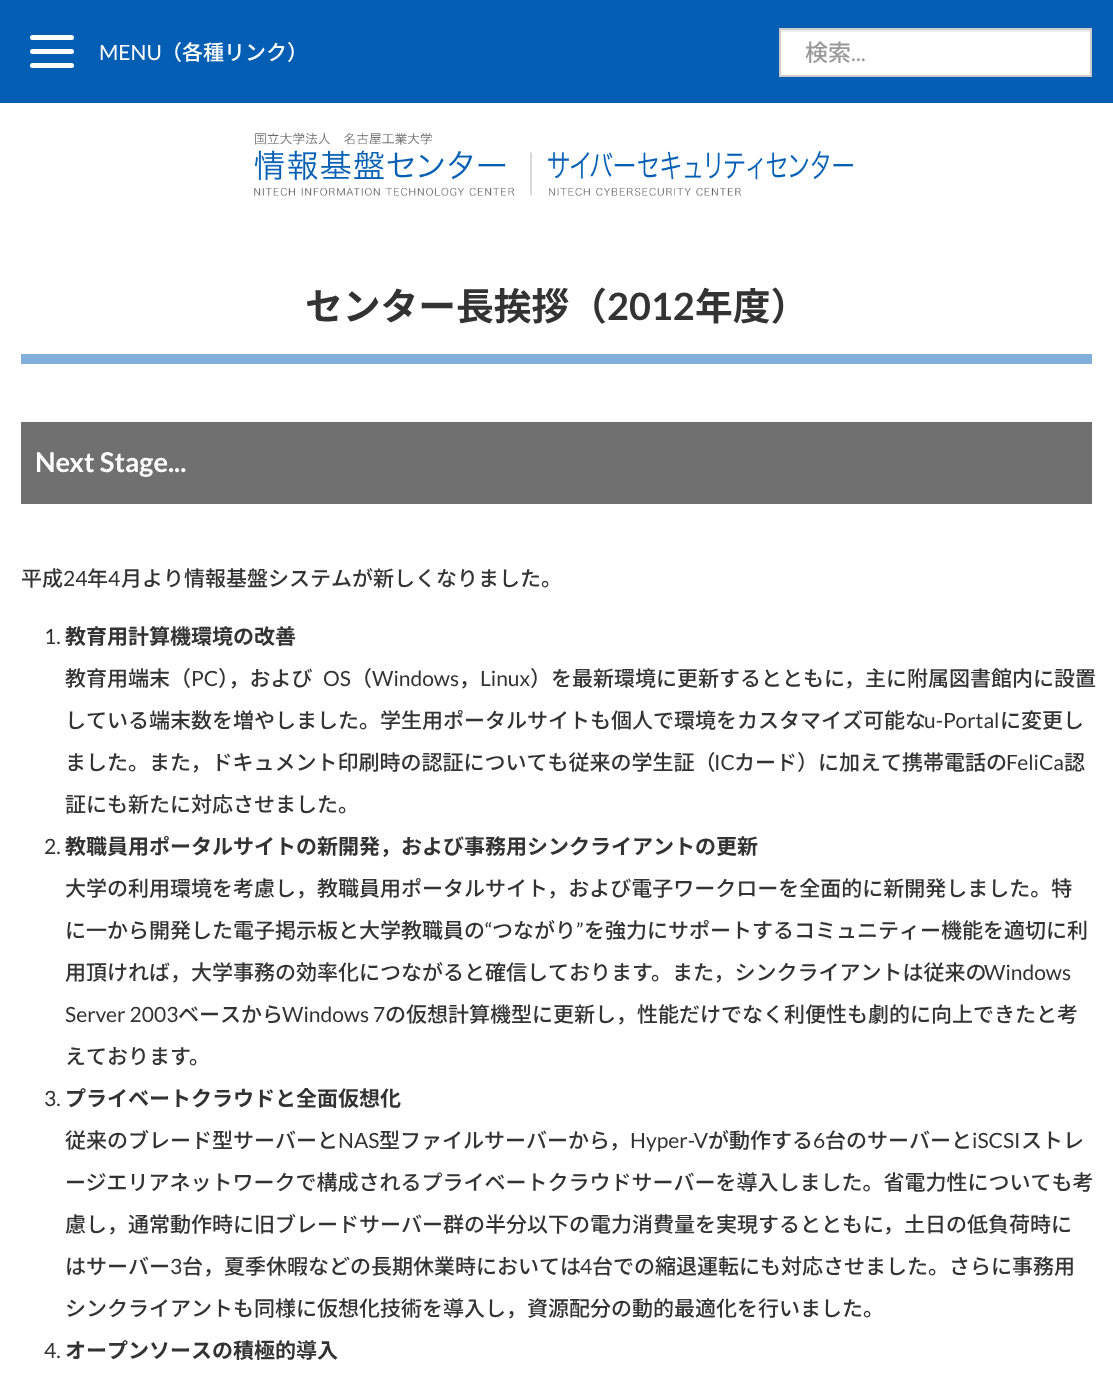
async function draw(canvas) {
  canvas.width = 1113;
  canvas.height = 1389;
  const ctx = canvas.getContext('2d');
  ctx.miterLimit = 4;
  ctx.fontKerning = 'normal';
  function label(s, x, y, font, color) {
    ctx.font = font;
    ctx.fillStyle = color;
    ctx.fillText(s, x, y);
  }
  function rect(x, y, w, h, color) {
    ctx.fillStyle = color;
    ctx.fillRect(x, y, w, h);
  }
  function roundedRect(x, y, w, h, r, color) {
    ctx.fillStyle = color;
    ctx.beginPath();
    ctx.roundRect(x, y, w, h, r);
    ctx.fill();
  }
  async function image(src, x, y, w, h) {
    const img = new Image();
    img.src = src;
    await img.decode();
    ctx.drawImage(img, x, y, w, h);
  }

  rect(0, 0, 1113, 1389, '#fff');
  rect(0, 0, 1113, 103, '#045fb4');
  rect(781, 32, 309, 43, '#fff');
  rect(781, 30, 309, 2, '#ececec');
  ctx.strokeStyle = '#ccc';
  ctx.lineWidth = 2;
  ctx.strokeRect(780, 29, 311, 47);
  label('検索', 805, 61, '500 23px Noto Sans JP', '#999');
  label('...', 851, 61, '23px Lato', '#999');
  await image('assets/img1.png', 254, 132, 599, 64);
  label('センター長挨拶（', 305, 320, 'bold 37.75px Noto Sans JP', '#333');
  label('2012', 607, 320, 'bold 37.75px Lato', '#333');
  label('年度）', 695, 320, 'bold 37.75px Noto Sans JP', '#333');
  rect(21, 354, 1071, 10, '#82afda');
  rect(21, 422, 1071, 82, '#707070');
  label('Next Stage...', 35, 472, 'bold 27.25px Lato', '#fff');
  label('平成', 21, 586, '500 21px Noto Sans JP', '#333');
  label('24', 63, 586, '21px Lato', '#333');
  label('年', 87, 586, '500 21px Noto Sans JP', '#333');
  label('4', 108, 586, '21px Lato', '#333');
  label('月より情報基盤システムが新しくなりました。', 121, 586, '500 21px Noto Sans JP', '#333');
  label('1.', 44, 644, '21px Lato', '#333');
  label('教育用計算機環境の改善', 65, 644, 'bold 21px Noto Sans JP', '#333');
  label('教育用端末（', 65, 686, '500 21px Noto Sans JP', '#333');
  label('PC', 191, 686, '21px Lato', '#333');
  label('），および', 218, 686, '500 21px Noto Sans JP', '#333');
  label('OS', 323, 686, '21px Lato', '#333');
  label('（', 351, 686, '500 21px Noto Sans JP', '#333');
  label('Windows', 372, 686, '21px Lato', '#333');
  label('，', 459, 686, '500 21px Noto Sans JP', '#333');
  label('Linux', 480, 686, '21px Lato', '#333');
  label('）を最新環境に更新するとともに，主に附属図書館内に設置', 530, 686, '500 21px Noto Sans JP', '#333');
  label('している端末数を増やしました。学生用ポータルサイトも個人で環境をカスタマイズ可能な', 65, 728, '500 21px Noto Sans JP', '#333');
  label('u-Portal', 924, 728, '21px Lato', '#333');
  label('に変更し', 1000, 728, '500 21px Noto Sans JP', '#333');
  label('ました。また，ドキュメント印刷時の認証についても従来の学生証（', 65, 770, '500 21px Noto Sans JP', '#333');
  label('IC', 714, 770, '21px Lato', '#333');
  label('カード）に加えて携帯電話の', 734, 770, '500 21px Noto Sans JP', '#333');
  label('FeliCa', 1006, 770, '21px Lato', '#333');
  label('認', 1064, 770, '500 21px Noto Sans JP', '#333');
  label('証にも新たに対応させました。', 65, 812, '500 21px Noto Sans JP', '#333');
  label('2.', 44, 854, '21px Lato', '#333');
  label('教職員用ポータルサイトの新開発，および事務用シンクライアントの更新', 65, 854, 'bold 21px Noto Sans JP', '#333');
  label('大学の利用環境を考慮し，教職員用ポータルサイト，および電子ワークローを全面的に新開発しました。特', 65, 896, '500 21px Noto Sans JP', '#333');
  label('に一から開発した電子掲示板と大学教職員の', 65, 938, '500 21px Noto Sans JP', '#333');
  label('“', 485, 938, '21px Lato', '#333');
  label('つながり', 492, 938, '500 21px Noto Sans JP', '#333');
  label('”', 576, 938, '21px Lato', '#333');
  label('を強力にサポートするコミュニティー機能を適切に利', 584, 938, '500 21px Noto Sans JP', '#333');
  label('用頂ければ，大学事務の効率化につながると確信しております。また，シンクライアントは従来の', 65, 980, '500 21px Noto Sans JP', '#333');
  label('Windows', 984, 980, '21px Lato', '#333');
  label('Server 2003', 65, 1022, '21px Lato', '#333');
  label('ベースから', 178, 1022, '500 21px Noto Sans JP', '#333');
  label('Windows 7', 282, 1022, '21px Lato', '#333');
  label('の仮想計算機型に更新し，性能だけでなく利便性も劇的に向上できたと考', 385, 1022, '500 21px Noto Sans JP', '#333');
  label('えております。', 65, 1064, '500 21px Noto Sans JP', '#333');
  label('3.', 44, 1106, '21px Lato', '#333');
  label('プライベートクラウドと全面仮想化', 65, 1106, 'bold 21px Noto Sans JP', '#333');
  label('従来のブレード型サーバーと', 65, 1148, '500 21px Noto Sans JP', '#333');
  label('NAS', 338, 1148, '21px Lato', '#333');
  label('型ファイルサーバーから，', 379, 1148, '500 21px Noto Sans JP', '#333');
  label('Hyper-V', 630, 1148, '21px Lato', '#333');
  label('が動作する', 708, 1148, '500 21px Noto Sans JP', '#333');
  label('6', 813, 1148, '21px Lato', '#333');
  label('台のサーバーと', 825, 1148, '500 21px Noto Sans JP', '#333');
  label('iSCSI', 972, 1148, '21px Lato', '#333');
  label('ストレ', 1021, 1148, '500 21px Noto Sans JP', '#333');
  label('ージエリアネットワークで構成されるプライベートクラウドサーバーを導入しました。省電力性についても考', 65, 1190, '500 21px Noto Sans JP', '#333');
  label('慮し，通常動作時に旧ブレードサーバー群の半分以下の電力消費量を実現するとともに，土日の低負荷時に', 65, 1232, '500 21px Noto Sans JP', '#333');
  label('はサーバー', 65, 1274, '500 21px Noto Sans JP', '#333');
  label('3', 170, 1274, '21px Lato', '#333');
  label('台，夏季休暇などの長期休業時においては', 182, 1274, '500 21px Noto Sans JP', '#333');
  label('4', 580, 1274, '21px Lato', '#333');
  label('台での縮退運転にも対応させました。さらに事務用', 592, 1274, '500 21px Noto Sans JP', '#333');
  label('シンクライアントも同様に仮想化技術を導入し，資源配分の動的最適化を行いました。', 65, 1316, '500 21px Noto Sans JP', '#333');
  label('4.', 44, 1358, '21px Lato', '#333');
  label('オープンソースの積極的導入', 65, 1358, 'bold 21px Noto Sans JP', '#333');
  roundedRect(30, 35, 44, 5, 2.5, '#fff');
  roundedRect(30, 49, 44, 5, 2.5, '#fff');
  roundedRect(30, 63, 44, 5, 2.5, '#fff');
  label('MENU', 99, 60, '21px Lato', '#fff');
  label('（各種リンク）', 161, 60, '500 21px Noto Sans JP', '#fff');
}

draw(document.querySelector('canvas'));
